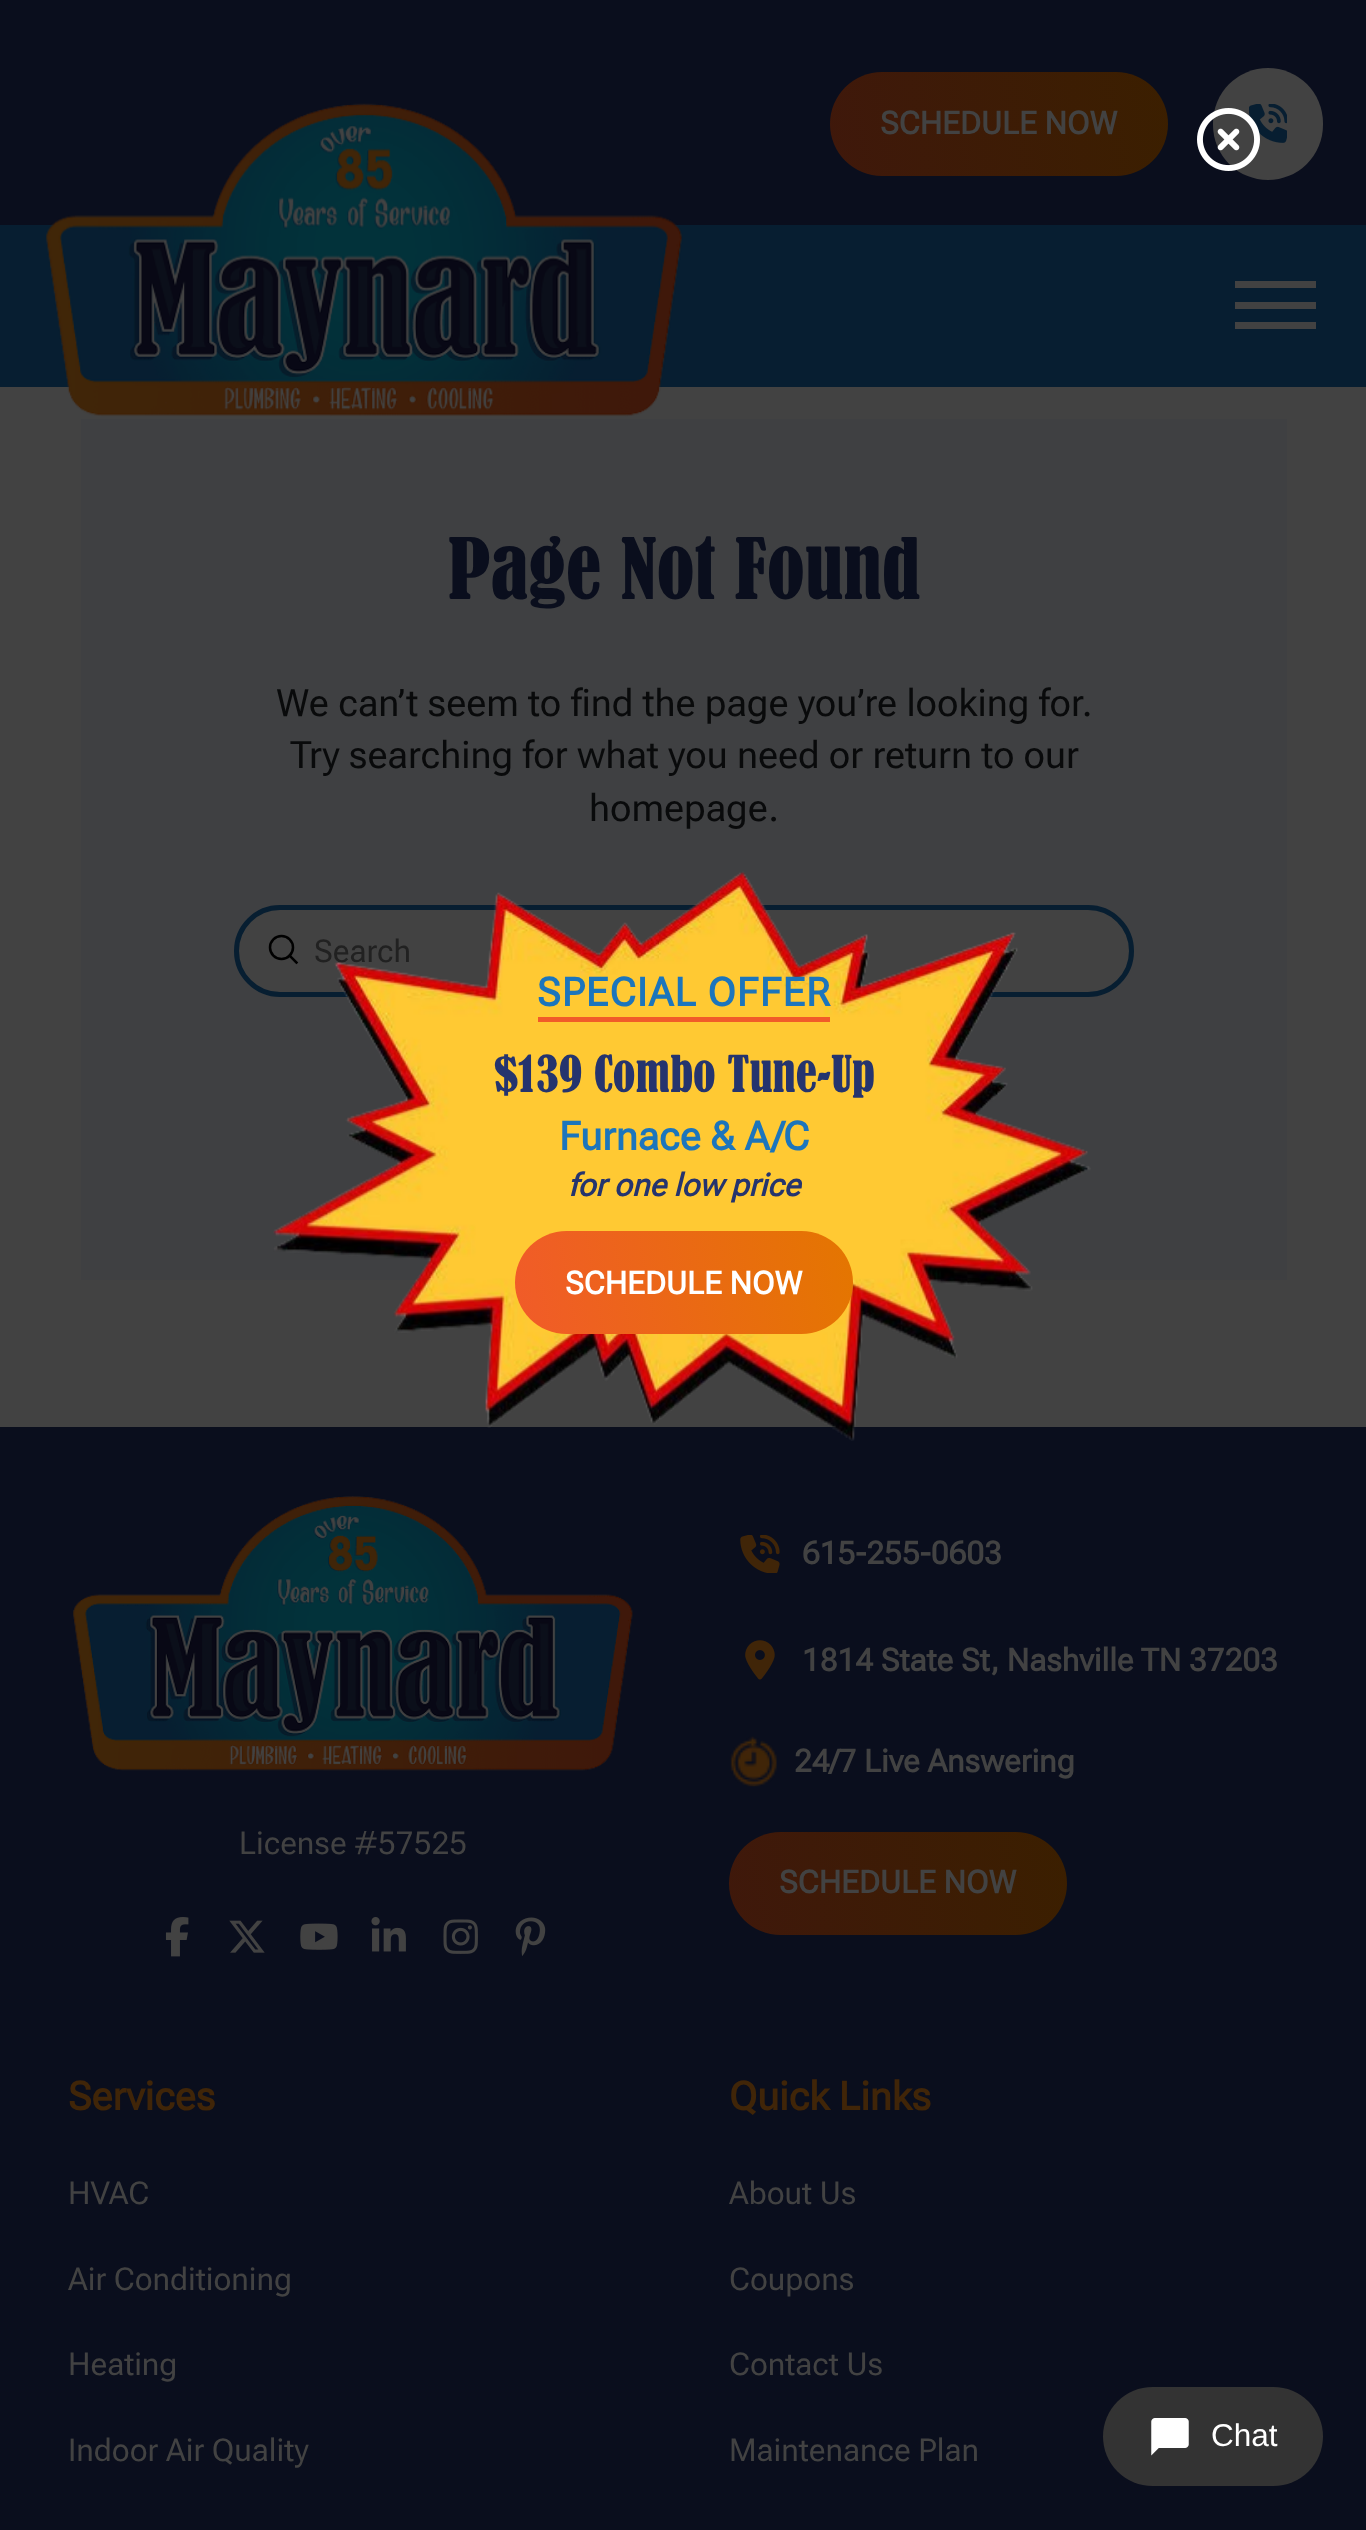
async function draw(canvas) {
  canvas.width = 1366;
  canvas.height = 2530;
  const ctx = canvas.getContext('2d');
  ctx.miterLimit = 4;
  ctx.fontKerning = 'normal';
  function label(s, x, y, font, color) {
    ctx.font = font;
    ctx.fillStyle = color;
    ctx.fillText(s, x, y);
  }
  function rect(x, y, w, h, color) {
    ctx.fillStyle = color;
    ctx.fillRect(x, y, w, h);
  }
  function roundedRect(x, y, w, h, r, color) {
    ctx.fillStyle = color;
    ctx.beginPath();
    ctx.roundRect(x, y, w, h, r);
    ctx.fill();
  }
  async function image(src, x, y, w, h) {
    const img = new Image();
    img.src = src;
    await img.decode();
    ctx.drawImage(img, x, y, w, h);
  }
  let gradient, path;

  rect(0, 0, 1366, 2530, '#424242');
  rect(0, 225, 1366, 162, '#071e31');
  rect(0, 0, 1366, 225, '#0a0e1d');
  await image('assets/img1.png', 46, 103, 637, 314);
  rect(1235, 281, 81, 7, '#424242');
  rect(1235, 302, 81, 7, '#424242');
  rect(1235, 322, 81, 7, '#424242');
  gradient = ctx.createLinearGradient(1172, 93, 826, 154);
  gradient.addColorStop(0, '#3b1f00');
  gradient.addColorStop(1, '#3f180b');
  ctx.fillStyle = gradient;
  ctx.beginPath();
  ctx.roundRect(830, 72, 338, 104, 52);
  ctx.fill();
  label('SCHEDULE NOW', 880, 134, 'bold 31.5px Roboto Flex', '#424242');
  roundedRect(1213, 68, 110, 112, 55, '#424242');
  await image('assets/img2.png', 1249, 104, 38, 39);
  await image('assets/img3.png', 1197, 108, 63, 63);
  rect(81, 419, 1206, 861, '#3f4042');
  ctx.fillStyle = '#424242';
  ctx.beginPath();
  ctx.roundRect(236.5, 907.5, 895, 87, 43.5);
  ctx.fill();
  ctx.strokeStyle = '#071e31';
  ctx.lineWidth = 5;
  ctx.stroke();
  ctx.beginPath();
  ctx.arc(281.5, 947.5, 11.5, 0, 2 * Math.PI);
  ctx.strokeStyle = '#000';
  ctx.lineWidth = 2.5;
  ctx.stroke();
  path = new Path2D('M296.5 962.5L289.5 955.5');
  ctx.lineCap = 'square';
  ctx.stroke(path);
  label('Search', 314, 962, '31.5px Roboto Flex', '#212121');
  rect(0, 1427, 1366, 1103, '#0a0e1d');
  await image('assets/img4.png', 273, 871, 818, 570);
  rect(538, 1017, 292, 5, '#f15b29');
  ctx.letterSpacing = '1.1px';
  label('SPECIAL OFFER', 537, 1006, 'bold 39.5px Roboto Flex', '#1c75bc');
  ctx.letterSpacing = '0px';
  label('$139 Combo Tune-Up', 494, 1092, '47.25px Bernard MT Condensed', '#25346e');
  label('Furnace & A/C', 559, 1150, 'bold 39.5px Roboto Flex', '#1c75bc');
  label('for one low price', 568, 1196, 'italic bold 31.5px Roboto Flex', '#25346e');
  gradient = ctx.createLinearGradient(857, 1252, 511, 1313);
  gradient.addColorStop(0, '#e47600');
  gradient.addColorStop(1, '#f15b29');
  ctx.fillStyle = gradient;
  ctx.beginPath();
  ctx.roundRect(515, 1231, 338, 103, 51.5);
  ctx.fill();
  label('SCHEDULE NOW', 565, 1294, 'bold 31.5px Roboto Flex', '#fff');
  label('Page Not Found', 448, 599, '78.75px Bernard MT Condensed', '#0a0e1d');
  label('We can’t seem to find the page you’re looking for.', 276, 716, '37.8px Roboto Flex', '#090a0b');
  label('Try searching for what you need or return to our', 290, 768, '37.8px Roboto Flex', '#090a0b');
  label('homepage.', 589, 821, '37.8px Roboto Flex', '#090a0b');
  await image('assets/img5.png', 73, 1495, 560, 276);
  label('License #57525', 239, 1854, '31.5px Roboto Flex', '#424242');
  await image('assets/img6.png', 165, 1917, 24, 40);
  await image('assets/img7.png', 229, 1920, 36, 33);
  await image('assets/img8.png', 300, 1923, 38, 27);
  await image('assets/img9.png', 371, 1917, 35, 35);
  await image('assets/img10.png', 443, 1919, 35, 35);
  await image('assets/img11.png', 515, 1917, 31, 39);
  await image('assets/img12.png', 740, 1535, 40, 38);
  label('615-255-0603', 802, 1564, 'bold 31.5px Roboto Flex', '#424242');
  await image('assets/img13.png', 745, 1640, 30, 40);
  label('1814 State St, Nashville TN 37203', 802, 1671, 'bold 31.5px Roboto Flex', '#424242');
  await image('assets/img14.png', 730, 1736, 47, 51);
  label('24/7 Live Answering', 794, 1772, 'bold 31.5px Roboto Flex', '#424242');
  gradient = ctx.createLinearGradient(1070, 1853, 725, 1914);
  gradient.addColorStop(0, '#3b1f00');
  gradient.addColorStop(1, '#3f180b');
  ctx.fillStyle = gradient;
  ctx.beginPath();
  ctx.roundRect(729, 1832, 338, 103, 51.5);
  ctx.fill();
  label('SCHEDULE NOW', 779, 1893, 'bold 31.5px Roboto Flex', '#424242');
  label('Services', 68, 2110, 'bold 39.5px Roboto Flex', '#402508');
  label('HVAC', 68, 2204, '31.5px Roboto Flex', '#424242');
  label('Air Conditioning', 68, 2290, '31.5px Roboto Flex', '#424242');
  label('Heating', 68, 2375, '31.5px Roboto Flex', '#424242');
  label('Indoor Air Quality', 68, 2461, '31.5px Roboto Flex', '#424242');
  label('Quick Links', 729, 2110, 'bold 39.5px Roboto Flex', '#402508');
  label('About Us', 729, 2204, '31.5px Roboto Flex', '#424242');
  label('Coupons', 729, 2290, '31.5px Roboto Flex', '#424242');
  label('Contact Us', 729, 2375, '31.5px Roboto Flex', '#424242');
  label('Maintenance Plan', 729, 2461, '31.5px Roboto Flex', '#424242');
  roundedRect(1103, 2387, 220, 99, 49.5, '#333');
  await image('assets/img15.png', 1151, 2418, 38, 38);
  label('Chat', 1211, 2446, '31.5px Liberation Sans', '#fff');
}

draw(document.querySelector('canvas'));
